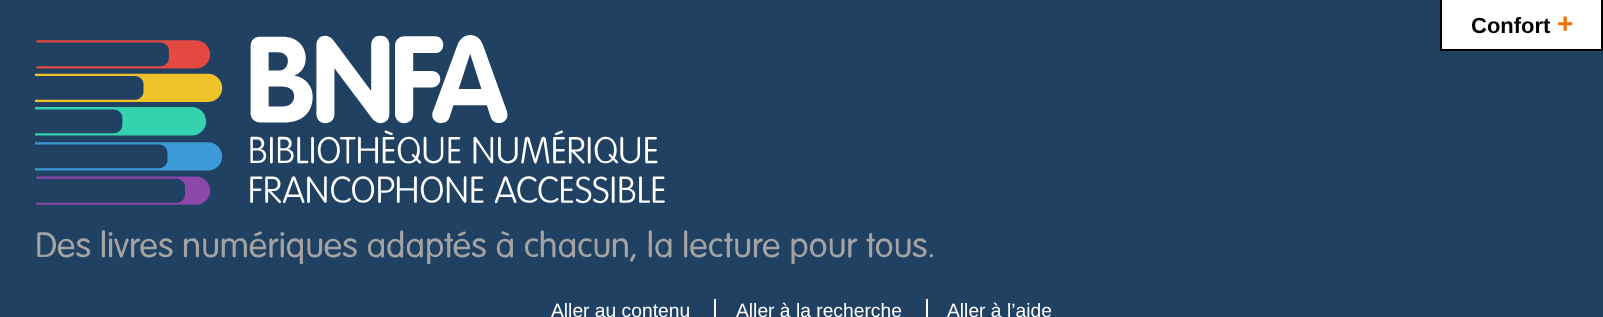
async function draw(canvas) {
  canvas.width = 1603;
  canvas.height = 317;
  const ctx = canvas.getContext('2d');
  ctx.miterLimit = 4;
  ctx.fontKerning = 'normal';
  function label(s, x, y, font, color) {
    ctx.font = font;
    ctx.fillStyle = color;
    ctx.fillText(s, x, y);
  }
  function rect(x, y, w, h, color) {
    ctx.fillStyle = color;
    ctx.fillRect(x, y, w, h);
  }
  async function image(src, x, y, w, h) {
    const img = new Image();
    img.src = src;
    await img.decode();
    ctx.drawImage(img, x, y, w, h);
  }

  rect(0, 0, 1603, 317, '#204162');
  rect(1442, 0, 159, 49, '#fff');
  rect(1601, 0, 2, 51, '#000');
  rect(1440, 49, 163, 2, '#000');
  rect(1440, 0, 2, 51, '#000');
  label('Confort', 1471, 33, 'bold 22px Liberation Sans', '#000');
  label('+', 1557, 33, 'bold 28px Liberation Sans', '#f16e00');
  await image('assets/img1.png', 35, 35, 898, 229);
  label('Aller au contenu', 551, 317, '19.25px Liberation Sans', '#fff');
  label('Aller à la recherche', 736, 317, '19.25px Liberation Sans', '#fff');
  rect(714, 299, 2, 18, '#fff');
  label('Aller à l’aide', 947, 317, '19.25px Liberation Sans', '#fff');
  rect(926, 299, 2, 18, '#fff');
}

draw(document.querySelector('canvas'));
